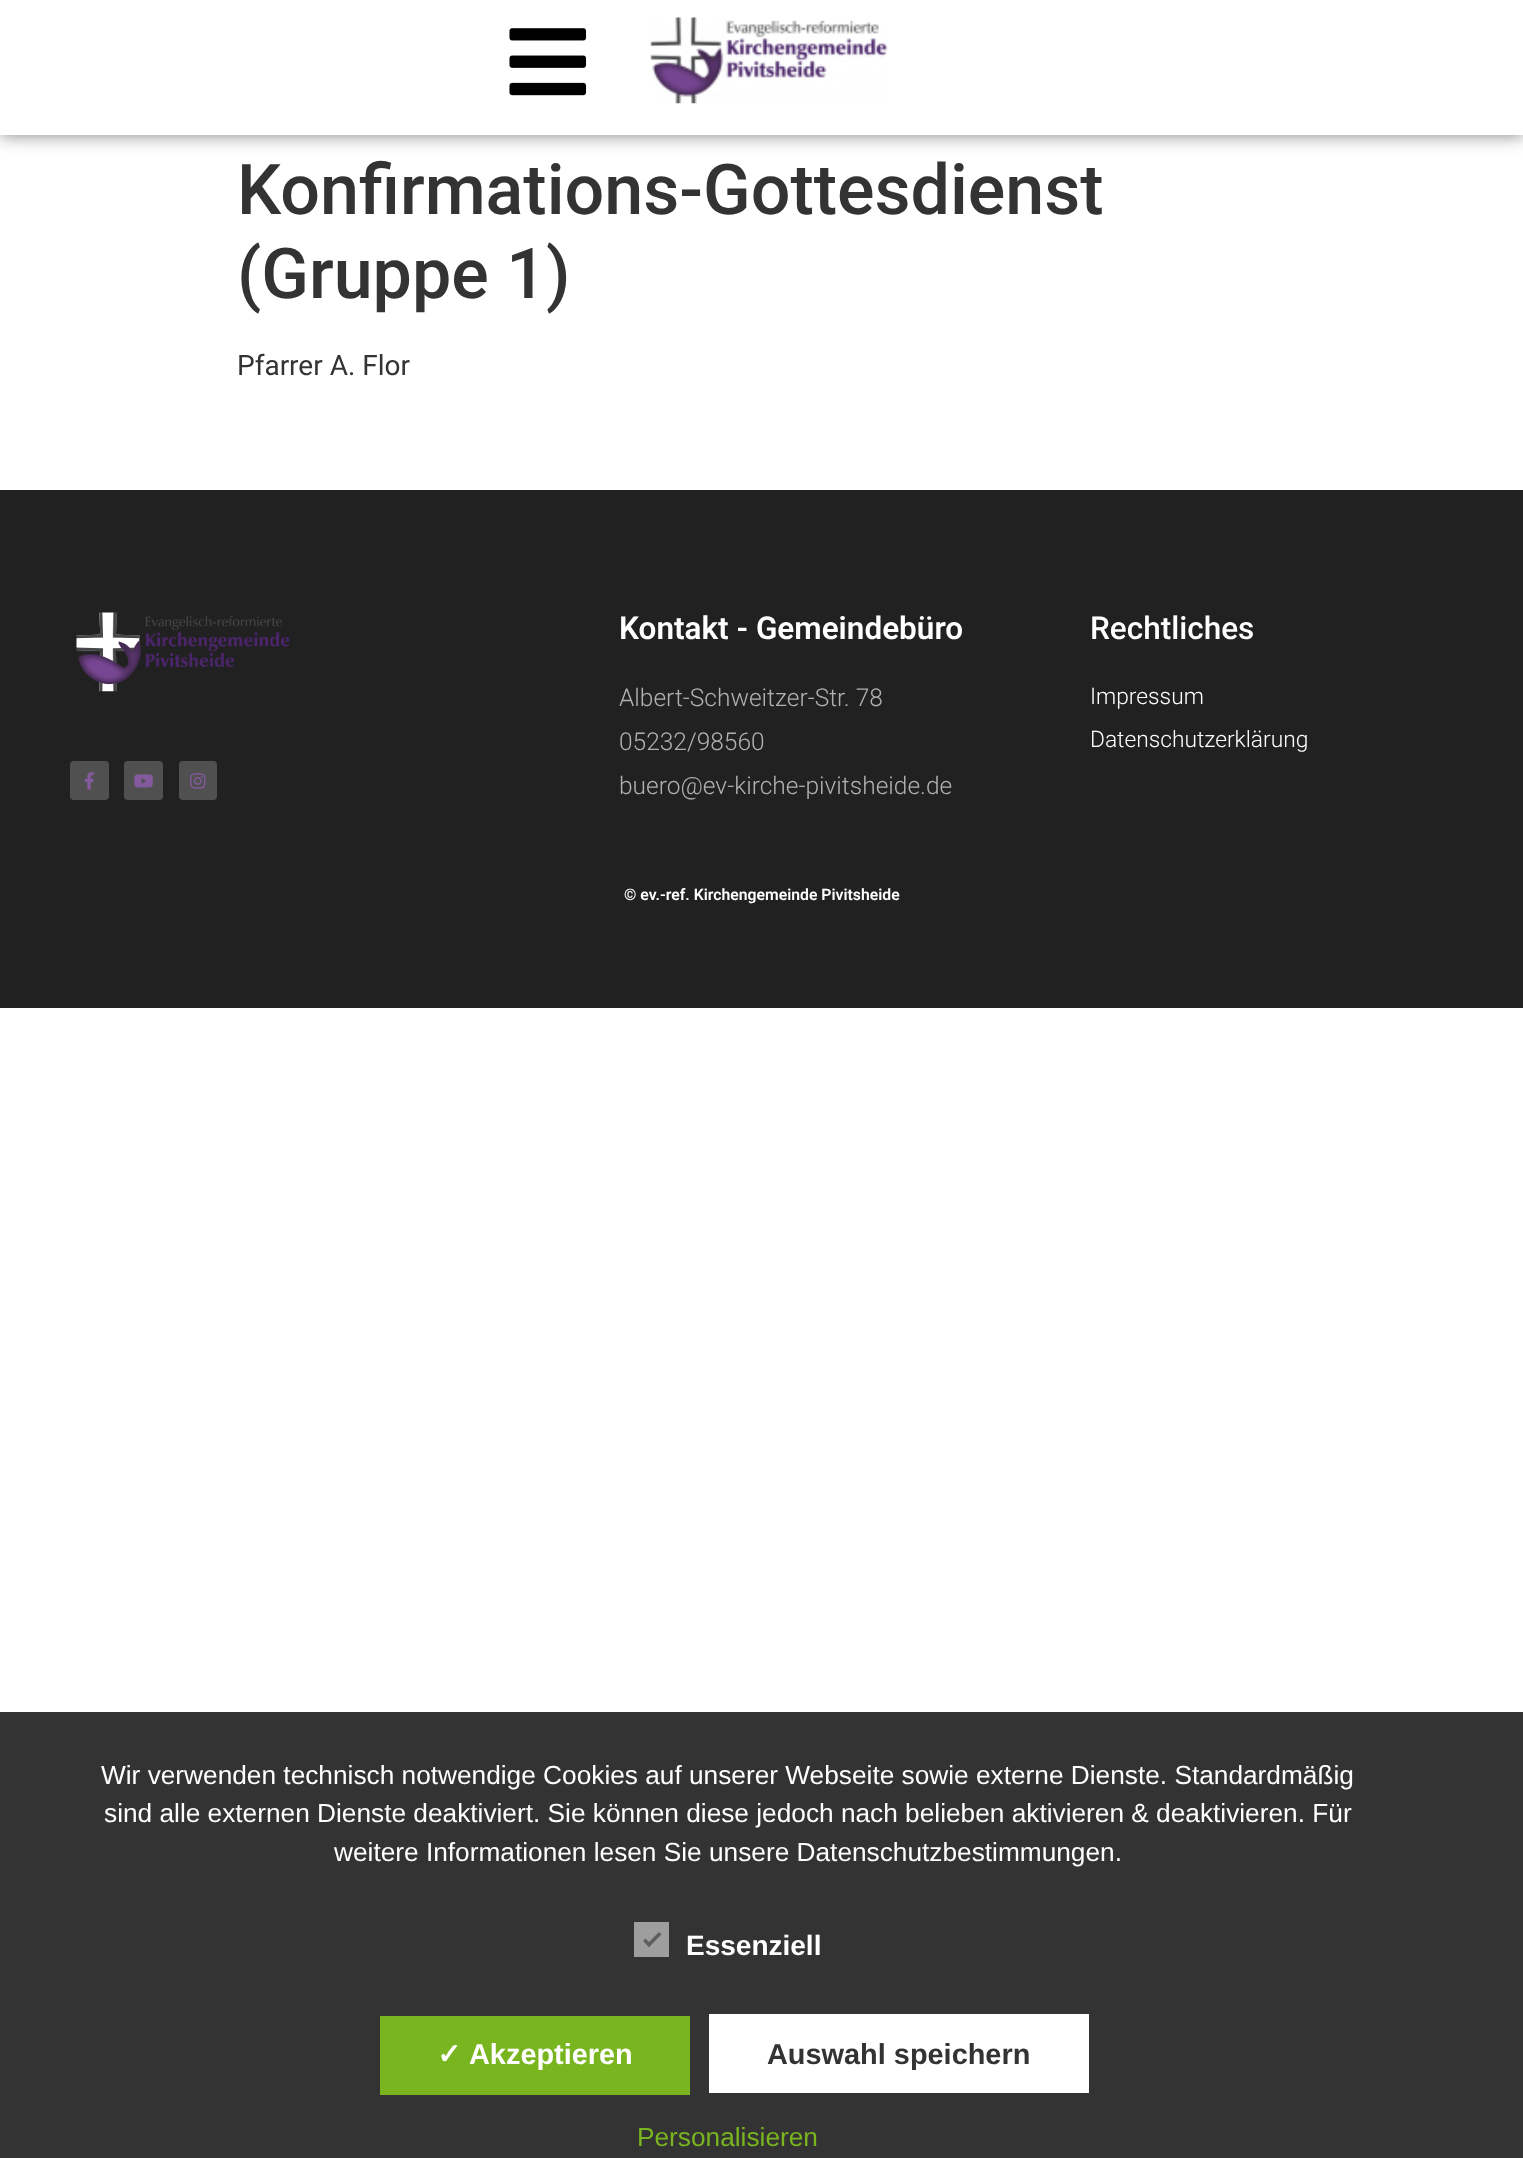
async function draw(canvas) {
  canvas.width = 1523;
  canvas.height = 2158;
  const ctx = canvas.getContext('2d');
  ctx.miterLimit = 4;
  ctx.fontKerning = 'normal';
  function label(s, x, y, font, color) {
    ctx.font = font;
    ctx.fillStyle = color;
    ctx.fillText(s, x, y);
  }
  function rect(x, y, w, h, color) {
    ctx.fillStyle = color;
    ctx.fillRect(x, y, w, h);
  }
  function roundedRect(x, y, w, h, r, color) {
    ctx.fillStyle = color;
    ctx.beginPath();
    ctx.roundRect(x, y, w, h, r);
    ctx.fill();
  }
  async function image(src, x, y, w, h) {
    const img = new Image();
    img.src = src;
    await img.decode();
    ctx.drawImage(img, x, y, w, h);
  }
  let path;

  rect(0, 0, 1523, 2158, '#fff');
  ctx.fillStyle = '#00000080';
  ctx.filter = 'blur(9px)';
  ctx.beginPath();
  ctx.rect(0, 0, 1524, 135);
  ctx.fill();
  ctx.filter = 'none';
  rect(0, 0, 1523, 135, '#fff');
  await image('assets/img1.png', 509, 28, 78, 68);
  await image('assets/img2.png', 650, 17, 238, 87);
  label('Konfirmations-Gottesdienst', 237, 214, '500 70px Roboto', '#333');
  label('(Gruppe 1)', 237, 298, '500 70px Roboto', '#333');
  label('Pfarrer A. Flor', 237, 375, '28px Roboto', '#333');
  rect(0, 490, 1523, 518, '#222121');
  await image('assets/img3.png', 76, 612, 214, 80);
  roundedRect(70, 761, 39, 39, 4, '#505050');
  await image('assets/img4.png', 84, 772, 10, 18);
  roundedRect(124, 761, 39, 39, 4, '#505050');
  await image('assets/img5.png', 134, 774, 19, 14);
  roundedRect(179, 761, 38, 39, 4, '#505050');
  await image('assets/img6.png', 190, 773, 16, 16);
  label('Kontakt - Gemeindebüro', 619, 639, '600 31.5px Roboto', '#fff');
  label('Albert-Schweitzer-Str. 78', 619, 706, '300 24.5px Roboto', '#b2b1b1');
  label('05232/98560', 619, 750, '300 24.5px Roboto', '#b2b1b1');
  label('buero@ev-kirche-pivitsheide.de', 619, 794, '300 24.5px Roboto', '#b2b1b1');
  label('Rechtliches', 1090, 639, '500 31.5px Roboto', '#fff');
  label('Impressum', 1090, 704, '300 22.75px Roboto', '#fff');
  label('Datenschutzerklärung', 1090, 747, '300 22.75px Roboto', '#fff');
  label('© ev.-ref. Kirchengemeinde Pivitsheide', 624, 900, '600 15.75px Roboto', '#fff');
  rect(0, 1712, 1523, 446, '#333');
  label('Wir verwenden technisch notwendige Cookies auf unserer Webseite sowie externe Dienste. Standardmäßig', 101, 1784, '26.25px Liberation Sans', '#fff');
  label('sind alle externen Dienste deaktiviert. Sie können diese jedoch nach belieben aktivieren & deaktivieren. Für', 104, 1822, '26.25px Liberation Sans', '#fff');
  label('weitere Informationen lesen Sie unsere Datenschutzbestimmungen.', 334, 1861, '26.25px Liberation Sans', '#fff');
  rect(634, 1922, 35, 35, '#9e9e9e');
  ctx.fillStyle = '#5e5e5e';
  path = new Path2D('M659 1932L661.5 1934.5L649 1947L646.5 1944.5Z');
  ctx.fill(path);
  path = new Path2D('M645.5 1938.5L651.5 1944.5L649 1947L643 1941Z');
  ctx.fill(path);
  label('Essenziell', 686, 1955, 'bold 28px Liberation Sans', '#fff');
  rect(380, 2016, 310, 79, '#79b51f');
  label('✓', 437, 2064, 'bold 28.9px DejaVu Sans', '#fff');
  label('Akzeptieren', 469, 2064, 'bold 28.9px Liberation Sans', '#fff');
  rect(709, 2014, 380, 79, '#fff');
  label('Auswahl speichern', 767, 2064, 'bold 28.9px Liberation Sans', '#333');
  label('Personalisieren', 637, 2146, '26.25px Liberation Sans', '#79b51f');
}

draw(document.querySelector('canvas'));
